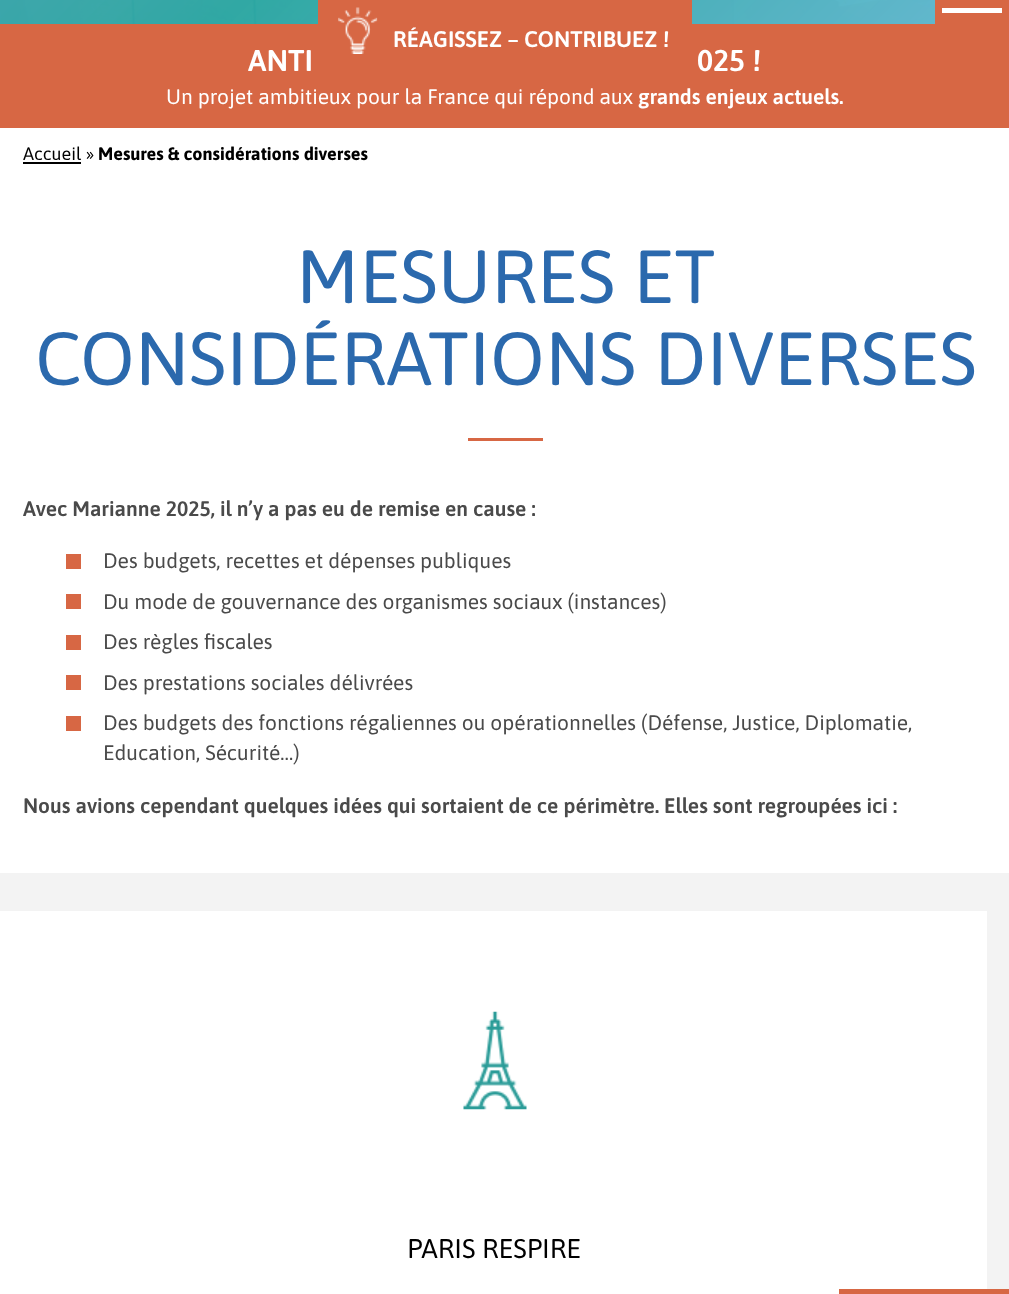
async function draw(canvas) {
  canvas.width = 1009;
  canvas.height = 1294;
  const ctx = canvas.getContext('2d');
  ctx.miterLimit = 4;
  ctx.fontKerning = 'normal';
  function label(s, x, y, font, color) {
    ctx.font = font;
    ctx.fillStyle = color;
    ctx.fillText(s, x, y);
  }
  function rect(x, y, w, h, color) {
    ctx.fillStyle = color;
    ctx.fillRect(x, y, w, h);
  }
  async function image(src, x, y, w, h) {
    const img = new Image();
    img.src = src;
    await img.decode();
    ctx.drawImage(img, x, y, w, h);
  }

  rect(0, 0, 1009, 1294, '#fff');
  await image('assets/img1.png', 0, 0, 935, 24);
  rect(935, 0, 74, 24, '#d76744');
  rect(942, 8, 60, 5, '#fff');
  rect(318, 0, 374, 24, '#d76744');
  rect(0, 24, 1009, 104, '#d76744');
  await image('assets/img2.png', 338, 7, 40, 47);
  label('RÉAGISSEZ – CONTRIBUEZ !', 393, 47, '600 22.5px Asap', '#fff');
  label('ANTI', 248, 71, '600 30px Asap', '#fff');
  label('025 !', 697, 71, '600 30px Asap', '#fff');
  label('Un projet ambitieux pour la France qui répond aux', 166, 104, '21px Asap', '#fff');
  label('grands enjeux actuels.', 638, 104, '600 21px Asap', '#fff');
  label('Accueil »', 23, 160, '18px Asap', '#000');
  rect(23, 162, 58, 2, '#000');
  label('Mesures & considérations diverses', 98, 160, 'bold 18px Asap', '#000');
  label('MESURES ET', 296, 303, '75px Asap', '#2b69ad');
  label('CONSIDÉRATIONS DIVERSES', 35, 385, '75px Asap', '#2b69ad');
  rect(468, 438, 75, 3, '#d76744');
  label('Avec Marianne 2025, il n’y a pas eu de remise en cause :', 23, 516, '600 21px Asap', '#4a4a4a');
  rect(66, 554, 15, 15, '#d76744');
  label('Des budgets, recettes et dépenses publiques', 103, 568, '21px Asap', '#4a4a4a');
  rect(66, 594, 15, 15, '#d76744');
  label('Du mode de gouvernance des organismes sociaux (instances)', 103, 609, '21px Asap', '#4a4a4a');
  rect(66, 635, 15, 15, '#d76744');
  label('Des règles fiscales', 103, 649, '21px Asap', '#4a4a4a');
  rect(66, 675, 15, 15, '#d76744');
  label('Des prestations sociales délivrées', 103, 690, '21px Asap', '#4a4a4a');
  rect(66, 716, 15, 15, '#d76744');
  label('Des budgets des fonctions régaliennes ou opérationnelles (Défense, Justice, Diplomatie,', 103, 730, '21px Asap', '#4a4a4a');
  label('Education, Sécurité…)', 103, 760, '21px Asap', '#4a4a4a');
  label('Nous avions cependant quelques idées qui sortaient de ce périmètre. Elles sont regroupées ici :', 23, 813, '600 21px Asap', '#4a4a4a');
  rect(0, 873, 1009, 416, '#f3f3f3');
  rect(0, 911, 987, 378, '#fff');
  await image('assets/img3.png', 463, 1011, 64, 99);
  label('PARIS RESPIRE', 407, 1258, '27px Asap', '#000');
  rect(839, 1289, 170, 5, '#d76744');
}

draw(document.querySelector('canvas'));
